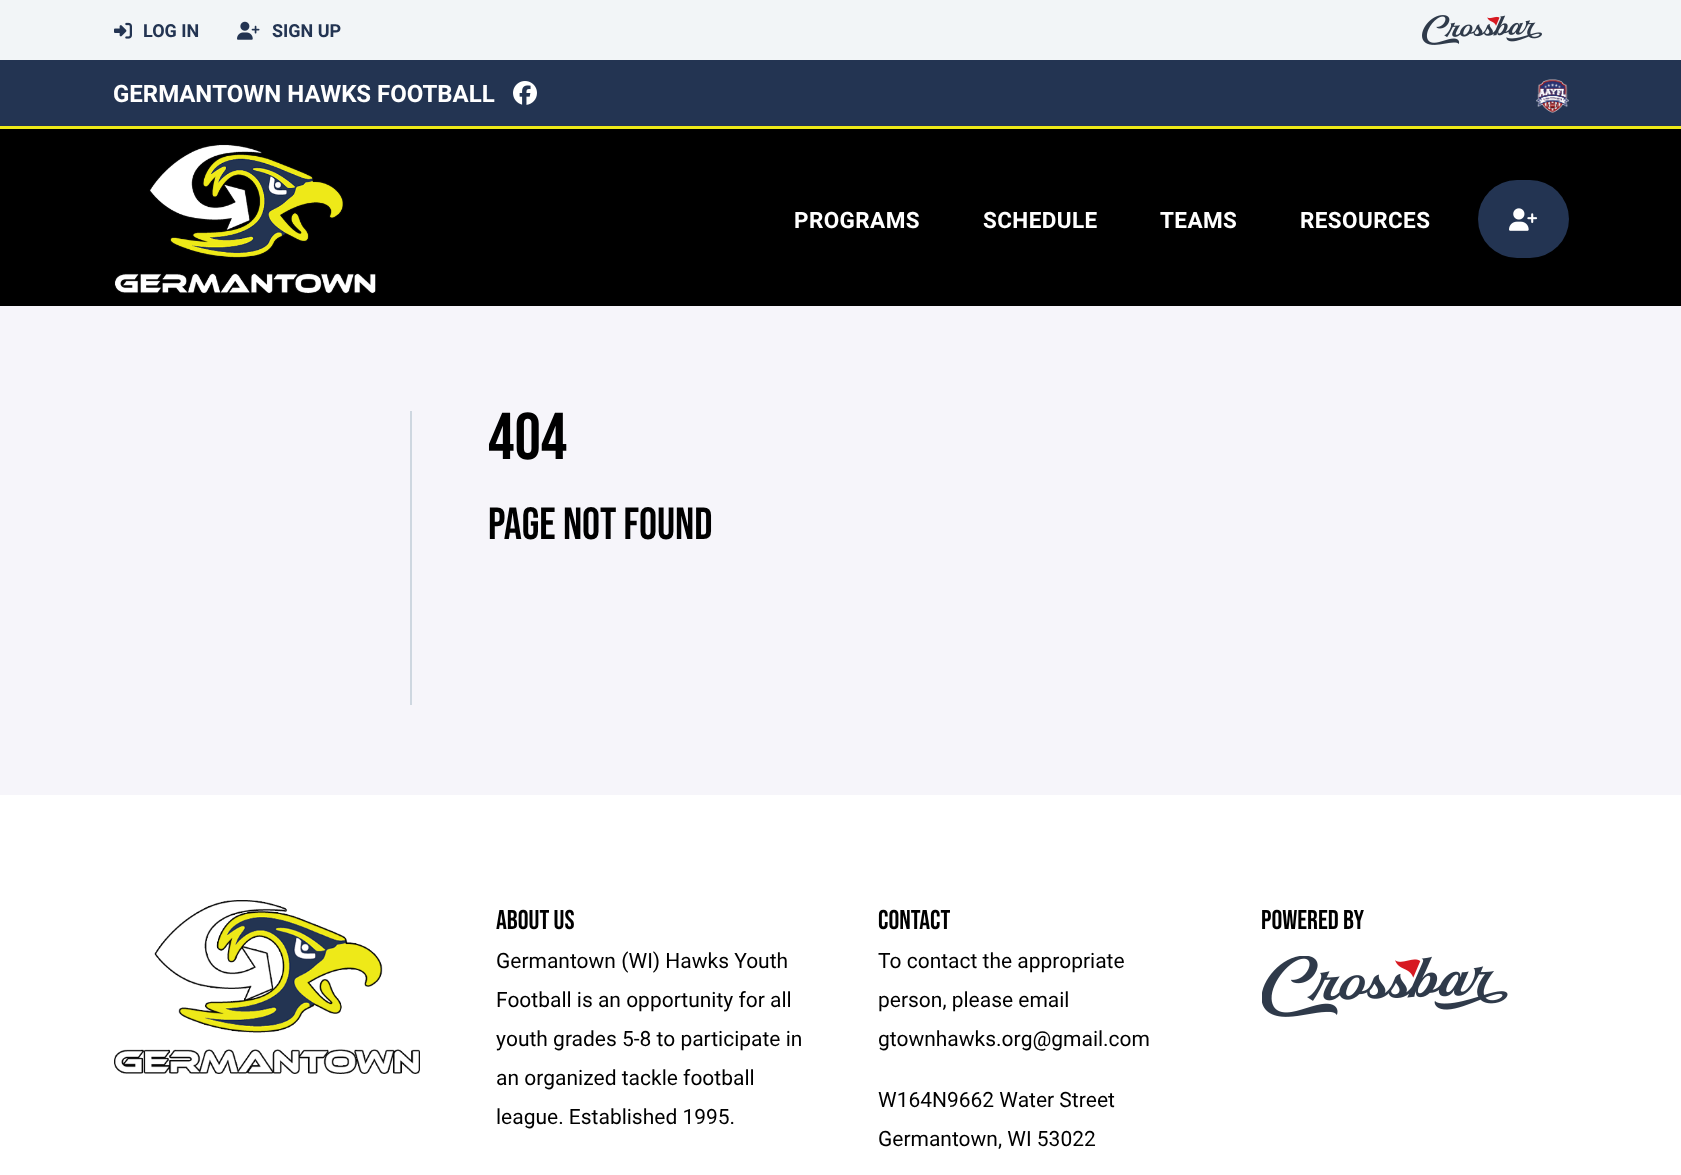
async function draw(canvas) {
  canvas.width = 1681;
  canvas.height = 1175;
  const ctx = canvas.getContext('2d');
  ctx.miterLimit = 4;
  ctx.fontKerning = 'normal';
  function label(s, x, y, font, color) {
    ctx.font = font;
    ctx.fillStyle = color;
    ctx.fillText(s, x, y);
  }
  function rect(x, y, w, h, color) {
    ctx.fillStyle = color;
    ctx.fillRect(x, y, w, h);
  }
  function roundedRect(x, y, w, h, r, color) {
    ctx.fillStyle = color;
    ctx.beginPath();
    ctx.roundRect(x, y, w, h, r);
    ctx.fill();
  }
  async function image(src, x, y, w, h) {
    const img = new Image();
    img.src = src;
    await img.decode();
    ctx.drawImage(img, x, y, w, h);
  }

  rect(0, 0, 1681, 1175, '#f2f5f7');
  await image('assets/img1.png', 114, 22, 18, 17);
  label('LOG IN', 143, 37, 'bold 18px Roboto', '#233452');
  await image('assets/img2.png', 237, 21, 23, 19);
  label('SIGN UP', 272, 37, 'bold 18px Roboto', '#233452');
  await image('assets/img3.png', 1422, 15, 120, 30);
  rect(0, 60, 1681, 66, '#233452');
  label('GERMANTOWN HAWKS FOOTBALL', 113, 102, 'bold 24px Roboto', '#fff');
  await image('assets/img4.png', 513, 81, 24, 24);
  await image('assets/img5.png', 1536, 79, 33, 34);
  rect(0, 129, 1681, 177, '#000');
  rect(0, 126, 1681, 3, '#eee918');
  await image('assets/img6.png', 114, 144, 262, 150);
  ctx.letterSpacing = '0.4px';
  label('PROGRAMS', 794, 228, 'bold 22.5px Roboto', '#fff');
  label('SCHEDULE', 983, 228, 'bold 22.5px Roboto', '#fff');
  label('TEAMS', 1160, 228, 'bold 22.5px Roboto', '#fff');
  label('RESOURCES', 1300, 228, 'bold 22.5px Roboto', '#fff');
  roundedRect(1478, 180, 91, 78, 39, '#233452');
  await image('assets/img7.png', 1509, 208, 29, 23);
  rect(0, 306, 1681, 489, '#f6f5fa');
  rect(410, 411, 2, 294, '#ced7e0');
  ctx.letterSpacing = '0px';
  label('404', 488, 459, '66px Bebas Neue', '#000');
  label('PAGE NOT FOUND', 488, 539, '45px Bebas Neue', '#000');
  rect(0, 795, 1681, 380, '#fff');
  await image('assets/img8.png', 114, 900, 306, 174);
  label('ABOUT US', 496, 929, '27px Bebas Neue', '#000');
  label('Germantown (WI) Hawks Youth', 496, 968, '21px Roboto', '#000');
  label('Football is an opportunity for all', 496, 1007, '21px Roboto', '#000');
  label('youth grades 5-8 to participate in', 496, 1046, '21px Roboto', '#000');
  label('an organized tackle football', 496, 1085, '21px Roboto', '#000');
  label('league. Established 1995.', 496, 1124, '21px Roboto', '#000');
  label('CONTACT', 878, 929, '27px Bebas Neue', '#000');
  label('To contact the appropriate', 878, 968, '21px Roboto', '#000');
  label('person, please email', 878, 1007, '21px Roboto', '#000');
  label('gtownhawks.org@gmail.com', 878, 1046, '21px Roboto', '#000');
  label('W164N9662 Water Street', 878, 1107, '21px Roboto', '#000');
  label('Germantown, WI 53022', 878, 1146, '21px Roboto', '#000');
  label('POWERED BY', 1261, 929, '27px Bebas Neue', '#000');
  await image('assets/img9.png', 1262, 956, 246, 61);
}

draw(document.querySelector('canvas'));
